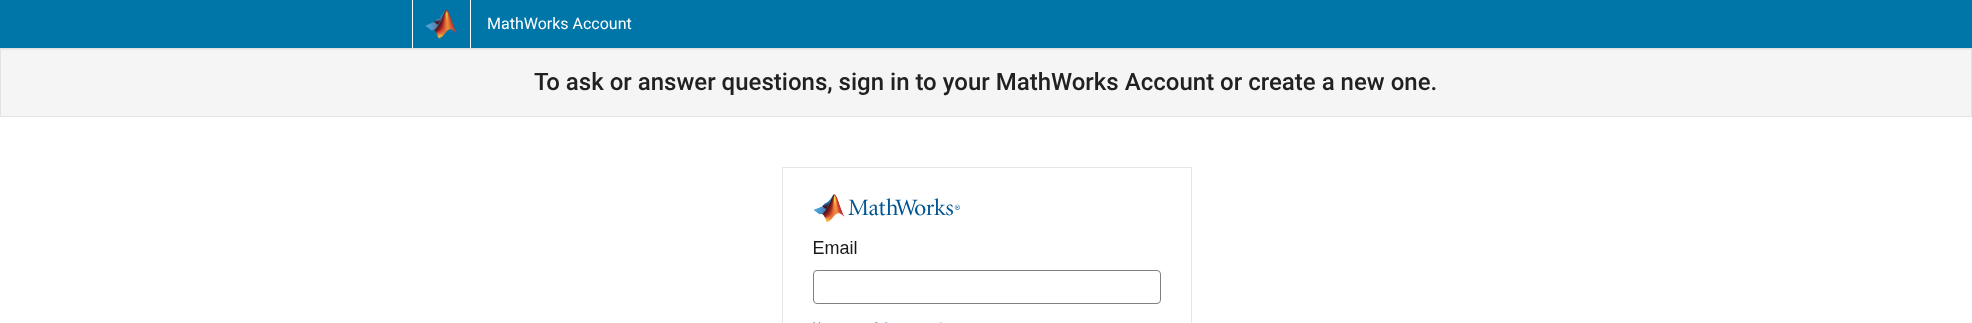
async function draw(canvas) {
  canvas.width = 1972;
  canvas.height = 323;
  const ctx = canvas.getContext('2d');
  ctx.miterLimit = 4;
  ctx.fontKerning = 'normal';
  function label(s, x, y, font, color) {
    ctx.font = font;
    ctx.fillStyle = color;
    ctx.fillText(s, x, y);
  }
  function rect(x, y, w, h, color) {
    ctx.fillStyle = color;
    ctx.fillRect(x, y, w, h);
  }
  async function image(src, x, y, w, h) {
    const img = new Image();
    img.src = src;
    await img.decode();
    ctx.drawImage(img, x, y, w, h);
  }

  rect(0, 0, 1972, 323, '#fff');
  rect(0, 0, 1972, 48, '#0076a8');
  rect(470, 0, 1, 48, '#fff');
  rect(412, 0, 1, 48, '#fff');
  await image('assets/img1.png', 425, 9, 32, 30);
  label('MathWorks Account', 487, 29, '16px Roboto', '#fff');
  rect(1, 50, 1970, 66, '#f5f5f5');
  rect(1, 49, 1970, 1, '#e9e9e9');
  ctx.strokeStyle = '#e3e3e3';
  ctx.strokeRect(0.5, 48.5, 1971, 68);
  label('To ask or answer questions, sign in to your MathWorks Account or create a new one.', 534, 90, '500 24px Roboto', '#212121');
  await image('assets/img2.png', 782, 167, 410, 156);
}

draw(document.querySelector('canvas'));
